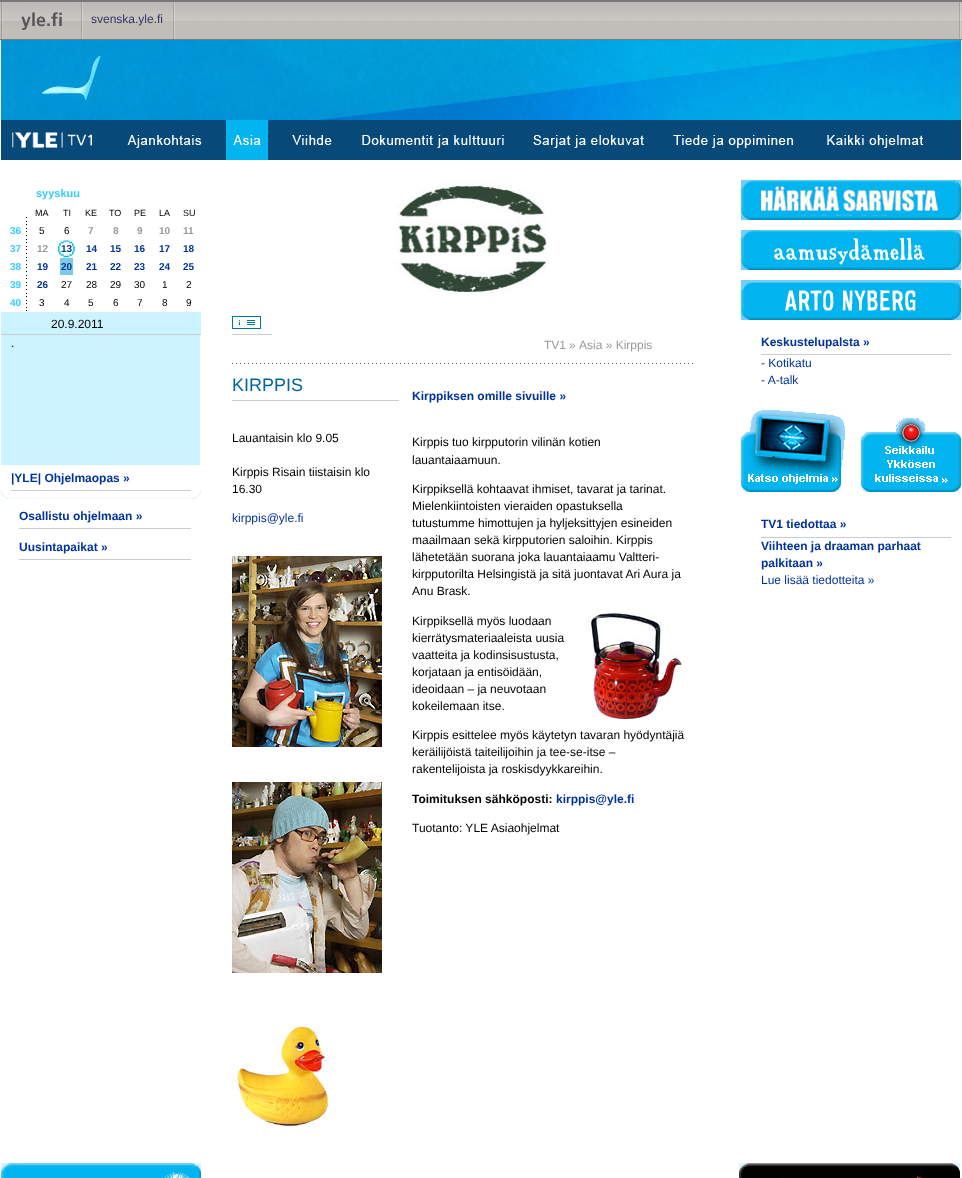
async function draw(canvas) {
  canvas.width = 962;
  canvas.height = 1178;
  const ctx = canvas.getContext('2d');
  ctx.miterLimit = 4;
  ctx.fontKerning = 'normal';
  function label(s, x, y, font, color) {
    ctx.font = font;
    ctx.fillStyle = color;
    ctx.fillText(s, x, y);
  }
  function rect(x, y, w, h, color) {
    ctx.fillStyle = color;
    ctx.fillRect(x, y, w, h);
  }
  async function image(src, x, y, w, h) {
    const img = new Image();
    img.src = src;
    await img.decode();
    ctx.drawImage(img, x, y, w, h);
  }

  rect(0, 0, 962, 1178, '#fff');
  rect(0, 21, 962, 18, '#c1bdb7');
  await image('assets/img1.png', 0, 0, 962, 21);
  rect(0, 39, 962, 1, '#7b7a7a');
  await image('assets/img2.png', 959, 2, 2, 37);
  await image('assets/img3.png', 1, 2, 80, 37);
  await image('assets/img2.png', 81, 2, 2, 37);
  await image('assets/img4.png', 173, 2, 2, 37);
  label('svenska.yle.fi', 91, 23, '12px Liberation Sans', '#336');
  rect(1, 40, 2, 80, '#0095d5');
  await image('assets/img5.png', 3, 40, 958, 80);
  rect(1, 120, 960, 40, '#074979');
  await image('assets/img6.png', 12, 132, 80, 16);
  await image('assets/img7.png', 127, 135, 75, 13);
  await image('assets/img8.png', 226, 120, 42, 40);
  await image('assets/img9.png', 292, 135, 40, 10);
  await image('assets/img10.png', 362, 135, 142, 13);
  await image('assets/img11.png', 533, 135, 111, 13);
  await image('assets/img12.png', 673, 135, 120, 13);
  await image('assets/img13.png', 827, 135, 97, 13);
  await image('assets/img14.png', 26, 217, 1, 94);
  label('syyskuu', 36, 197, 'bold 11px Liberation Sans', '#3cf');
  label('MA', 35, 216, '9px Liberation Sans', '#000');
  label('TI', 63, 216, '9px Liberation Sans', '#000');
  label('KE', 85, 216, '9px Liberation Sans', '#000');
  label('TO', 109, 216, '9px Liberation Sans', '#000');
  label('PE', 134, 216, '9px Liberation Sans', '#000');
  label('LA', 159, 216, '9px Liberation Sans', '#000');
  label('SU', 183, 216, '9px Liberation Sans', '#000');
  label('36', 10, 234, 'bold 10px Liberation Sans', '#3cf');
  label('5', 39, 234, '10px Liberation Sans', '#000');
  label('6', 64, 234, '10px Liberation Sans', '#000');
  label('7', 88, 234, 'bold 10px Liberation Sans', '#999');
  label('8', 113, 234, 'bold 10px Liberation Sans', '#999');
  label('9', 137, 234, 'bold 10px Liberation Sans', '#999');
  label('10', 159, 234, 'bold 10px Liberation Sans', '#999');
  label('11', 183, 234, 'bold 10px Liberation Sans', '#999');
  label('37', 10, 252, 'bold 10px Liberation Sans', '#3cf');
  label('12', 37, 252, 'bold 10px Liberation Sans', '#999');
  await image('assets/img15.png', 58, 240, 17, 18);
  label('13', 61, 252, 'bold 10px Liberation Sans', '#039');
  label('14', 86, 252, 'bold 10px Liberation Sans', '#039');
  label('15', 110, 252, 'bold 10px Liberation Sans', '#039');
  label('16', 134, 252, 'bold 10px Liberation Sans', '#039');
  label('17', 159, 252, 'bold 10px Liberation Sans', '#039');
  label('18', 183, 252, 'bold 10px Liberation Sans', '#039');
  label('38', 10, 270, 'bold 10px Liberation Sans', '#3cf');
  label('19', 37, 270, 'bold 10px Liberation Sans', '#039');
  rect(60, 258, 13, 17, '#7ccae5');
  label('20', 61, 270, 'bold 10px Liberation Sans', '#039');
  label('21', 86, 270, 'bold 10px Liberation Sans', '#039');
  label('22', 110, 270, 'bold 10px Liberation Sans', '#039');
  label('23', 134, 270, 'bold 10px Liberation Sans', '#039');
  label('24', 159, 270, 'bold 10px Liberation Sans', '#039');
  label('25', 183, 270, 'bold 10px Liberation Sans', '#039');
  label('39', 10, 288, 'bold 10px Liberation Sans', '#3cf');
  label('26', 37, 288, 'bold 10px Liberation Sans', '#039');
  label('27', 61, 288, '10px Liberation Sans', '#000');
  label('28', 86, 288, '10px Liberation Sans', '#000');
  label('29', 110, 288, '10px Liberation Sans', '#000');
  label('30', 134, 288, '10px Liberation Sans', '#000');
  label('1', 162, 288, '10px Liberation Sans', '#000');
  label('2', 186, 288, '10px Liberation Sans', '#000');
  label('40', 10, 306, 'bold 10px Liberation Sans', '#3cf');
  label('3', 39, 306, '10px Liberation Sans', '#000');
  label('4', 64, 306, '10px Liberation Sans', '#000');
  label('5', 88, 306, '10px Liberation Sans', '#000');
  label('6', 113, 306, '10px Liberation Sans', '#000');
  label('7', 137, 306, '10px Liberation Sans', '#000');
  label('8', 162, 306, '10px Liberation Sans', '#000');
  label('9', 186, 306, '10px Liberation Sans', '#000');
  rect(1, 312, 200, 22, '#cbf2ff');
  rect(1, 334, 200, 1, '#ccc');
  label('20.9.2011', 51, 328, '12px Liberation Sans', '#000');
  rect(1, 335, 199, 130, '#cbf2ff');
  label('.', 11, 347, '12px Liberation Sans', '#000');
  await image('assets/img16.png', 1, 490, 200, 9);
  rect(11, 490, 180, 1, '#ccc');
  label('|YLE| Ohjelmaopas »', 11, 482, 'bold 12px Liberation Sans', '#039');
  rect(19, 528, 172, 1, '#ccc');
  label('Osallistu ohjelmaan »', 19, 520, 'bold 12px Liberation Sans', '#039');
  rect(19, 559, 172, 1, '#ccc');
  label('Uusintapaikat »', 19, 551, 'bold 12px Liberation Sans', '#039');
  await image('assets/img17.png', 396, 181, 151, 112);
  await image('assets/img18.png', 232, 363, 461, 1);
  await image('assets/img19.png', 232, 316, 29, 13);
  rect(232, 334, 40, 1, '#ccc');
  label('TV1', 544, 349, '12px Liberation Sans', '#999');
  label('»', 569, 349, '12px Liberation Sans', '#999');
  label('Asia » Kirppis', 579, 349, '12px Liberation Sans', '#999');
  rect(232, 400, 167, 1, '#ccc');
  label('KIRPPIS', 232, 391, '18px Liberation Sans', '#069');
  label('Lauantaisin klo 9.05', 232, 442, '12px Liberation Sans', '#000');
  label('Kirppis Risain tiistaisin klo', 232, 476, '12px Liberation Sans', '#000');
  label('16.30', 232, 493, '12px Liberation Sans', '#000');
  label('kirppis@yle.fi', 232, 522, '12px Liberation Sans', '#039');
  await image('assets/img20.png', 232, 556, 150, 191);
  await image('assets/img21.png', 232, 782, 150, 191);
  await image('assets/img22.png', 232, 1024, 96, 104);
  label('Kirppiksen omille sivuille »', 412, 400, 'bold 12px Liberation Sans', '#039');
  label('Kirppis tuo kirpputorin vilinän kotien', 412, 446, '12px Liberation Sans', '#000');
  label('lauantaiaamuun.', 412, 464, '12px Liberation Sans', '#000');
  label('Kirppiksellä kohtaavat ihmiset, tavarat ja tarinat.', 412, 493, '12px Liberation Sans', '#000');
  label('Mielenkiintoisten vieraiden opastuksella', 412, 510, '12px Liberation Sans', '#000');
  label('tutustumme himottujen ja hyljeksittyjen esineiden', 412, 527, '12px Liberation Sans', '#000');
  label('maailmaan sekä kirpputorien saloihin. Kirppis', 412, 544, '12px Liberation Sans', '#000');
  label('lähetetään suorana joka lauantaiaamu Valtteri-', 412, 561, '12px Liberation Sans', '#000');
  label('kirpputorilta Helsingistä ja sitä juontavat Ari Aura ja', 412, 578, '12px Liberation Sans', '#000');
  label('Anu Brask.', 412, 595, '12px Liberation Sans', '#000');
  label('Kirppiksellä myös luodaan', 412, 625, '12px Liberation Sans', '#000');
  label('kierrätysmateriaaleista uusia', 412, 642, '12px Liberation Sans', '#000');
  label('vaatteita ja kodinsisustusta,', 412, 659, '12px Liberation Sans', '#000');
  label('korjataan ja entisöidään,', 412, 676, '12px Liberation Sans', '#000');
  label('ideoidaan – ja neuvotaan', 412, 693, '12px Liberation Sans', '#000');
  label('kokeilemaan itse.', 412, 710, '12px Liberation Sans', '#000');
  await image('assets/img23.png', 585, 613, 97, 108);
  label('Kirppis esittelee myös käytetyn tavaran hyödyntäjiä', 412, 739, '12px Liberation Sans', '#000');
  label('keräilijöistä taiteilijoihin ja tee-se-itse –', 412, 756, '12px Liberation Sans', '#000');
  label('rakentelijoista ja roskisdyykkareihin.', 412, 773, '12px Liberation Sans', '#000');
  label('Toimituksen sähköposti:', 412, 803, 'bold 12px Liberation Sans', '#000');
  label('kirppis@yle.fi', 556, 803, 'bold 12px Liberation Sans', '#039');
  label('Tuotanto: YLE Asiaohjelmat', 412, 832, '12px Liberation Sans', '#000');
  await image('assets/img24.png', 741, 180, 220, 40);
  await image('assets/img25.png', 741, 230, 220, 40);
  await image('assets/img26.png', 741, 280, 220, 40);
  rect(761, 354, 190, 1, '#ccc');
  label('Keskustelupalsta »', 761, 346, 'bold 12px Liberation Sans', '#039');
  label('- Kotikatu', 761, 367, '12px Liberation Sans', '#039');
  label('- A-talk', 761, 384, '12px Liberation Sans', '#039');
  await image('assets/img27.png', 741, 410, 104, 82);
  await image('assets/img28.png', 861, 418, 100, 74);
  rect(761, 537, 190, 1, '#ccc');
  label('TV1 tiedottaa »', 761, 528, 'bold 12px Liberation Sans', '#039');
  label('Viihteen ja draaman parhaat', 761, 550, 'bold 12px Liberation Sans', '#039');
  label('palkitaan »', 761, 567, 'bold 12px Liberation Sans', '#039');
  label('Lue lisää tiedotteita »', 761, 584, '12px Liberation Sans', '#039');
  await image('assets/img29.png', 1, 1163, 200, 15);
  await image('assets/img30.png', 739, 1163, 221, 15);
}

draw(document.querySelector('canvas'));
